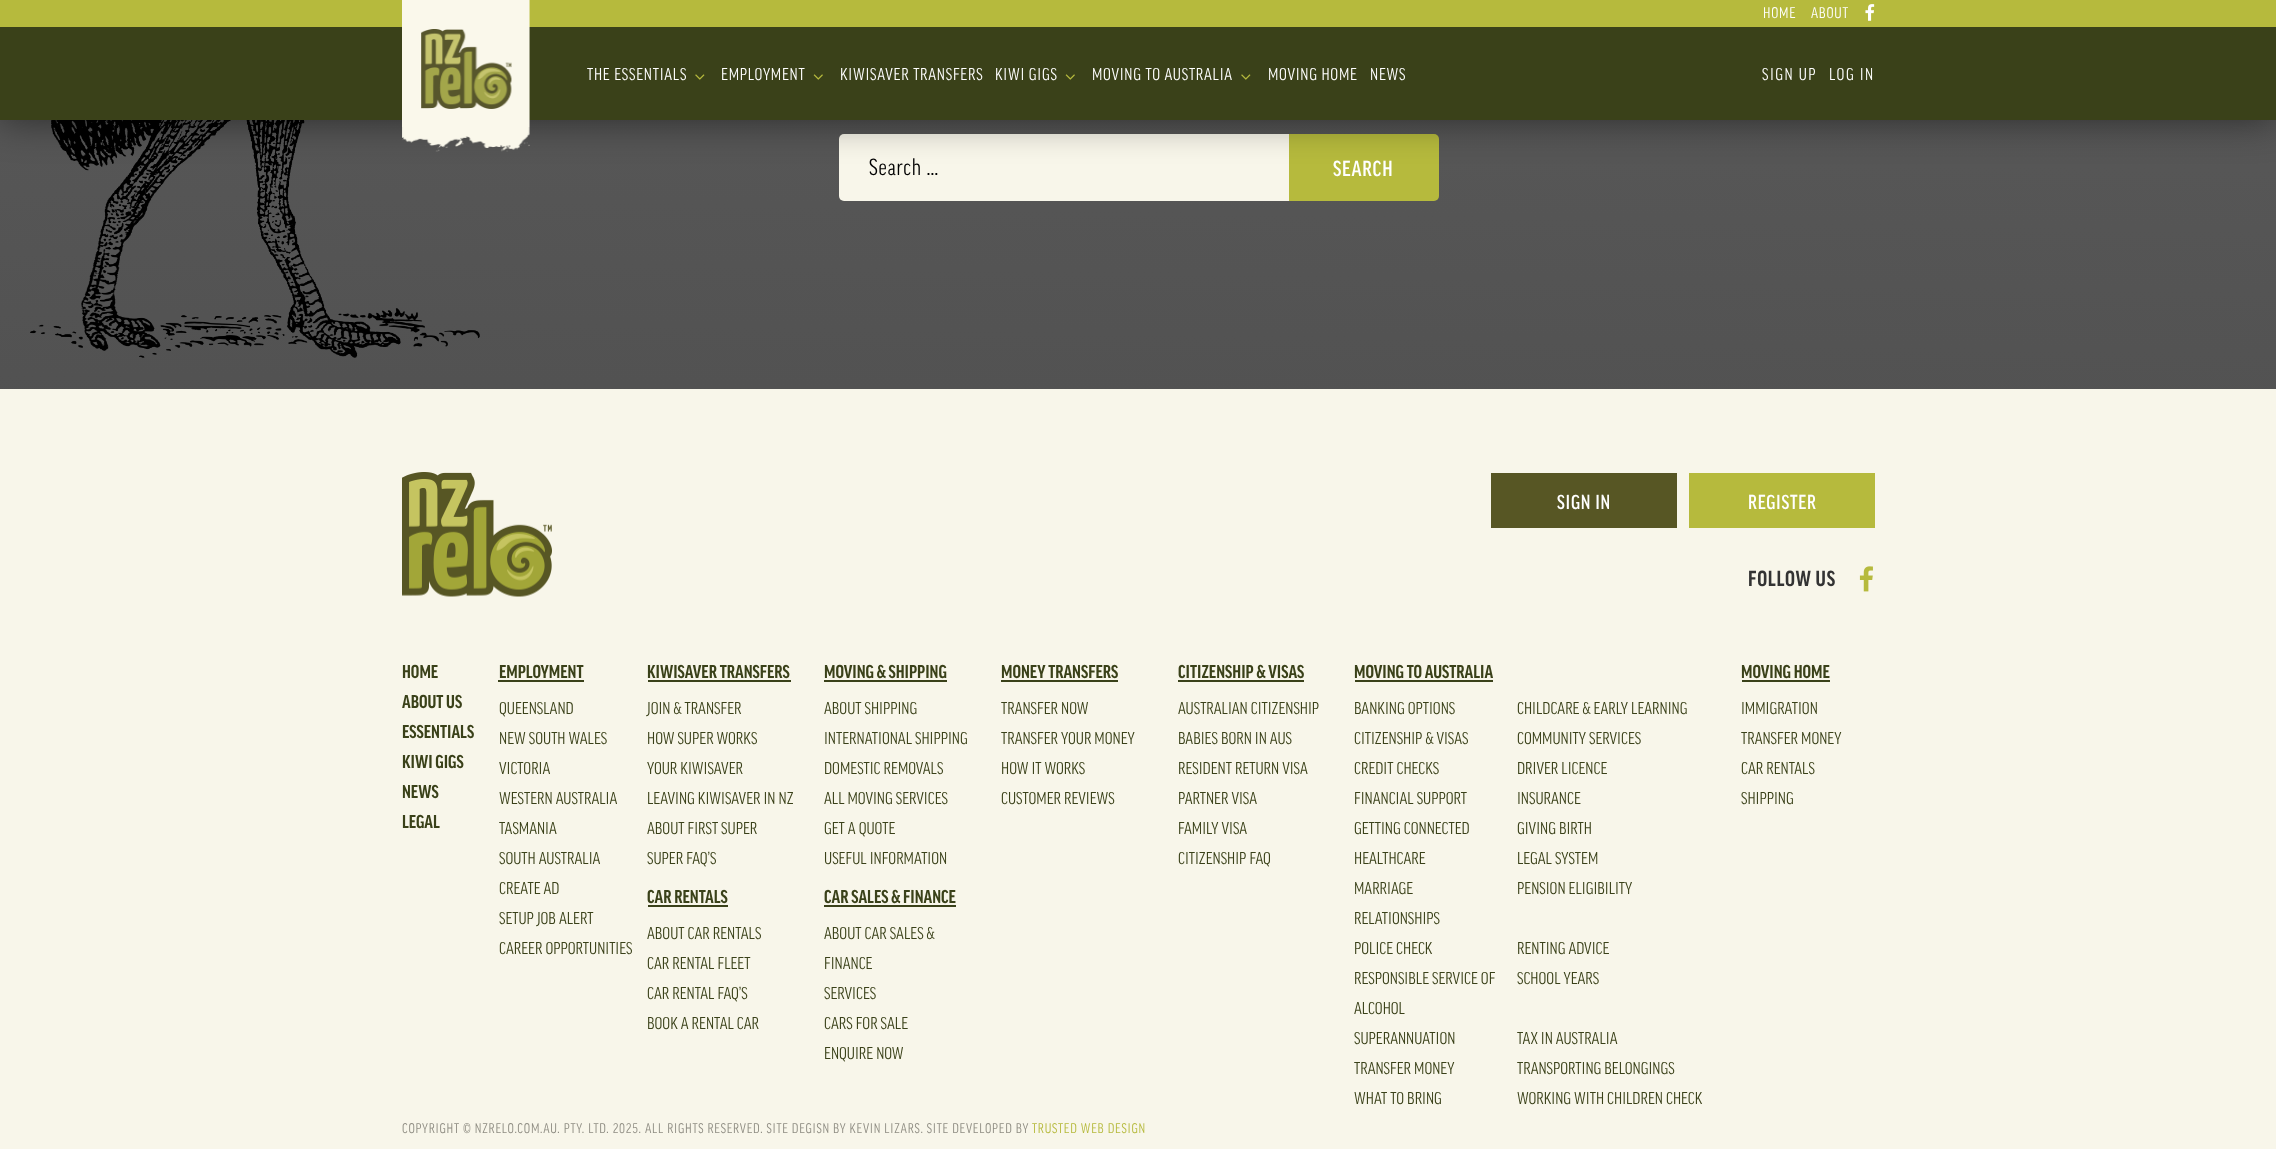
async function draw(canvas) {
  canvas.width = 2276;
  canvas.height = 1149;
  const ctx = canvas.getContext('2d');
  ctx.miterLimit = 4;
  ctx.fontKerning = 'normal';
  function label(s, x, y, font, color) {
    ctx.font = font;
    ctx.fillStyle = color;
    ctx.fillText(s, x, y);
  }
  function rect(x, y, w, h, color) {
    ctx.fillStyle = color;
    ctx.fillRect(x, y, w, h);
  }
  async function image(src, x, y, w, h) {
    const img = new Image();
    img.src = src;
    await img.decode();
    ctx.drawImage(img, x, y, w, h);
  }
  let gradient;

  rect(0, 0, 2276, 1149, '#f8f6ea');
  gradient = ctx.createLinearGradient(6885, -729, 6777, 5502);
  gradient.addColorStop(0, '#666');
  gradient.addColorStop(0.5, '#333');
  gradient.addColorStop(1, '#000');
  ctx.fillStyle = gradient;
  ctx.fillRect(0, 120, 2276, 269);
  await image('assets/img5.png', 30, 120, 450, 238);
  ctx.fillStyle = '#f8f6ea';
  ctx.beginPath();
  ctx.roundRect(839, 134, 450, 67, [5, 0, 0, 5]);
  ctx.fill();
  ctx.fillStyle = '#b6ba3d';
  ctx.beginPath();
  ctx.roundRect(1289, 134, 150, 67, [0, 5, 5, 0]);
  ctx.fill();
  ctx.fillStyle = '#00000080';
  ctx.filter = 'blur(19px)';
  ctx.beginPath();
  ctx.rect(0, 0, 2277, 120);
  ctx.fill();
  ctx.filter = 'none';
  rect(0, 0, 2276, 27, '#b6ba3d');
  ctx.letterSpacing = '0.75px';
  label('HOME', 1763, 18, '15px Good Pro', '#fff');
  label('ABOUT', 1811, 18, '15px Good Pro', '#fff');
  await image('assets/img1.png', 1865, 4, 10, 17);
  rect(0, 27, 2276, 93, '#3a4119');
  await image('assets/img2.png', 402, 0, 128, 152);
  label('THE ESSENTIALS', 587, 80, '16.5px Good Pro', '#fff');
  await image('assets/img3.png', 695, 74, 10, 6);
  label('EMPLOYMENT', 721, 80, '16.5px Good Pro', '#fff');
  await image('assets/img4.png', 813, 74, 10, 6);
  label('KIWISAVER TRANSFERS', 840, 80, '16.5px Good Pro', '#fff');
  label('KIWI GIGS', 995, 80, '16.5px Good Pro', '#fff');
  await image('assets/img4.png', 1065, 74, 10, 6);
  label('MOVING TO AUSTRALIA', 1092, 80, '16.5px Good Pro', '#fff');
  await image('assets/img3.png', 1241, 74, 10, 6);
  label('MOVING HOME', 1268, 80, '16.5px Good Pro', '#fff');
  label('NEWS', 1370, 80, '16.5px Good Pro', '#fff');
  ctx.letterSpacing = '1.5px';
  label('SIGN UP', 1762, 80, '16.5px Good Pro', '#fff');
  label('LOG IN', 1829, 80, '16.5px Good Pro', '#fff');
  ctx.letterSpacing = '0.75px';
  label('Search …', 869, 175, '22.5px Good Pro', '#000');
  label('SEARCH', 1333, 176, '500 21px Good Pro', '#fff');
  await image('assets/img6.png', 402, 472, 150, 125);
  rect(1491, 473, 186, 55, '#575624');
  label('SIGN IN', 1557, 509, '500 19.5px Good Pro', '#fff');
  rect(1689, 473, 186, 55, '#b6ba3d');
  label('REGISTER', 1748, 509, '500 19.5px Good Pro', '#fff');
  label('FOLLOW US', 1748, 586, 'bold 21px Good Pro', '#333');
  await image('assets/img7.png', 1859, 566, 14, 26);
  ctx.letterSpacing = '0px';
  label('HOME', 402, 678, 'bold 18px Good Pro', '#3a4119');
  label('ABOUT US', 402, 708, 'bold 18px Good Pro', '#3a4119');
  label('ESSENTIALS', 402, 738, 'bold 18px Good Pro', '#3a4119');
  label('KIWI GIGS', 402, 768, 'bold 18px Good Pro', '#3a4119');
  label('NEWS', 402, 798, 'bold 18px Good Pro', '#3a4119');
  label('LEGAL', 402, 828, 'bold 18px Good Pro', '#3a4119');
  label('EMPLOYMENT', 499, 678, 'bold 18px Good Pro', '#3a4119');
  rect(498, 680, 86, 2, '#3a4119');
  label('QUEENSLAND', 499, 714, '16.5px Good Pro', '#3a4119');
  label('NEW SOUTH WALES', 499, 744, '16.5px Good Pro', '#3a4119');
  label('VICTORIA', 499, 774, '16.5px Good Pro', '#3a4119');
  label('WESTERN AUSTRALIA', 499, 804, '16.5px Good Pro', '#3a4119');
  label('TASMANIA', 499, 834, '16.5px Good Pro', '#3a4119');
  label('SOUTH AUSTRALIA', 499, 864, '16.5px Good Pro', '#3a4119');
  label('CREATE AD', 499, 894, '16.5px Good Pro', '#3a4119');
  label('SETUP JOB ALERT', 499, 924, '16.5px Good Pro', '#3a4119');
  label('CAREER OPPORTUNITIES', 499, 954, '16.5px Good Pro', '#3a4119');
  label('KIWISAVER TRANSFERS', 647, 678, 'bold 18px Good Pro', '#3a4119');
  rect(648, 680, 143, 2, '#3a4119');
  label('JOIN & TRANSFER', 647, 714, '16.5px Good Pro', '#3a4119');
  label('HOW SUPER WORKS', 647, 744, '16.5px Good Pro', '#3a4119');
  label('YOUR KIWISAVER', 647, 774, '16.5px Good Pro', '#3a4119');
  label('LEAVING KIWISAVER IN NZ', 647, 804, '16.5px Good Pro', '#3a4119');
  label('ABOUT FIRST SUPER', 647, 834, '16.5px Good Pro', '#3a4119');
  label('SUPER FAQ’S', 647, 864, '16.5px Good Pro', '#3a4119');
  label('MOVING & SHIPPING', 824, 678, 'bold 18px Good Pro', '#3a4119');
  rect(824, 680, 123, 2, '#3a4119');
  label('ABOUT SHIPPING', 824, 714, '16.5px Good Pro', '#3a4119');
  label('INTERNATIONAL SHIPPING', 824, 744, '16.5px Good Pro', '#3a4119');
  label('DOMESTIC REMOVALS', 824, 774, '16.5px Good Pro', '#3a4119');
  label('ALL MOVING SERVICES', 824, 804, '16.5px Good Pro', '#3a4119');
  label('GET A QUOTE', 824, 834, '16.5px Good Pro', '#3a4119');
  label('USEFUL INFORMATION', 824, 864, '16.5px Good Pro', '#3a4119');
  label('MONEY TRANSFERS', 1001, 678, 'bold 18px Good Pro', '#3a4119');
  rect(1001, 680, 117, 2, '#3a4119');
  label('TRANSFER NOW', 1001, 714, '16.5px Good Pro', '#3a4119');
  label('TRANSFER YOUR MONEY', 1001, 744, '16.5px Good Pro', '#3a4119');
  label('HOW IT WORKS', 1001, 774, '16.5px Good Pro', '#3a4119');
  label('CUSTOMER REVIEWS', 1001, 804, '16.5px Good Pro', '#3a4119');
  label('CITIZENSHIP & VISAS', 1178, 678, 'bold 18px Good Pro', '#3a4119');
  rect(1178, 680, 126, 2, '#3a4119');
  label('AUSTRALIAN CITIZENSHIP', 1178, 714, '16.5px Good Pro', '#3a4119');
  label('BABIES BORN IN AUS', 1178, 744, '16.5px Good Pro', '#3a4119');
  label('RESIDENT RETURN VISA', 1178, 774, '16.5px Good Pro', '#3a4119');
  label('PARTNER VISA', 1178, 804, '16.5px Good Pro', '#3a4119');
  label('FAMILY VISA', 1178, 834, '16.5px Good Pro', '#3a4119');
  label('CITIZENSHIP FAQ', 1178, 864, '16.5px Good Pro', '#3a4119');
  label('CAR RENTALS', 647, 903, 'bold 18px Good Pro', '#3a4119');
  rect(648, 905, 80, 2, '#3a4119');
  label('ABOUT CAR RENTALS', 647, 939, '16.5px Good Pro', '#3a4119');
  label('CAR RENTAL FLEET', 647, 969, '16.5px Good Pro', '#3a4119');
  label('CAR RENTAL FAQ’S', 647, 999, '16.5px Good Pro', '#3a4119');
  label('BOOK A RENTAL CAR', 647, 1029, '16.5px Good Pro', '#3a4119');
  label('CAR SALES & FINANCE', 824, 903, 'bold 18px Good Pro', '#3a4119');
  rect(824, 905, 132, 2, '#3a4119');
  label('ABOUT CAR SALES &', 824, 939, '16.5px Good Pro', '#3a4119');
  label('FINANCE', 824, 969, '16.5px Good Pro', '#3a4119');
  label('SERVICES', 824, 999, '16.5px Good Pro', '#3a4119');
  label('CARS FOR SALE', 824, 1029, '16.5px Good Pro', '#3a4119');
  label('ENQUIRE NOW', 824, 1059, '16.5px Good Pro', '#3a4119');
  label('MOVING TO AUSTRALIA', 1354, 678, 'bold 18px Good Pro', '#3a4119');
  rect(1355, 680, 138, 2, '#3a4119');
  label('BANKING OPTIONS', 1354, 714, '16.5px Good Pro', '#3a4119');
  label('CHILDCARE & EARLY LEARNING', 1517, 714, '16.5px Good Pro', '#3a4119');
  label('CITIZENSHIP & VISAS', 1354, 744, '16.5px Good Pro', '#3a4119');
  label('COMMUNITY SERVICES', 1517, 744, '16.5px Good Pro', '#3a4119');
  label('CREDIT CHECKS', 1354, 774, '16.5px Good Pro', '#3a4119');
  label('DRIVER LICENCE', 1517, 774, '16.5px Good Pro', '#3a4119');
  label('FINANCIAL SUPPORT', 1354, 804, '16.5px Good Pro', '#3a4119');
  label('INSURANCE', 1517, 804, '16.5px Good Pro', '#3a4119');
  label('GETTING CONNECTED', 1354, 834, '16.5px Good Pro', '#3a4119');
  label('GIVING BIRTH', 1517, 834, '16.5px Good Pro', '#3a4119');
  label('HEALTHCARE', 1354, 864, '16.5px Good Pro', '#3a4119');
  label('LEGAL SYSTEM', 1517, 864, '16.5px Good Pro', '#3a4119');
  label('MARRIAGE', 1354, 894, '16.5px Good Pro', '#3a4119');
  label('RELATIONSHIPS', 1354, 924, '16.5px Good Pro', '#3a4119');
  label('PENSION ELIGIBILITY', 1517, 894, '16.5px Good Pro', '#3a4119');
  label('POLICE CHECK', 1354, 954, '16.5px Good Pro', '#3a4119');
  label('RENTING ADVICE', 1517, 954, '16.5px Good Pro', '#3a4119');
  label('RESPONSIBLE SERVICE OF', 1354, 984, '16.5px Good Pro', '#3a4119');
  label('ALCOHOL', 1354, 1014, '16.5px Good Pro', '#3a4119');
  label('SCHOOL YEARS', 1517, 984, '16.5px Good Pro', '#3a4119');
  label('SUPERANNUATION', 1354, 1044, '16.5px Good Pro', '#3a4119');
  label('TAX IN AUSTRALIA', 1517, 1044, '16.5px Good Pro', '#3a4119');
  label('TRANSFER MONEY', 1354, 1074, '16.5px Good Pro', '#3a4119');
  label('TRANSPORTING BELONGINGS', 1517, 1074, '16.5px Good Pro', '#3a4119');
  label('WHAT TO BRING', 1354, 1104, '16.5px Good Pro', '#3a4119');
  label('WORKING WITH CHILDREN CHECK', 1517, 1104, '16.5px Good Pro', '#3a4119');
  label('MOVING HOME', 1741, 678, 'bold 18px Good Pro', '#3a4119');
  rect(1742, 680, 88, 2, '#3a4119');
  label('IMMIGRATION', 1741, 714, '16.5px Good Pro', '#3a4119');
  label('TRANSFER MONEY', 1741, 744, '16.5px Good Pro', '#3a4119');
  label('CAR RENTALS', 1741, 774, '16.5px Good Pro', '#3a4119');
  label('SHIPPING', 1741, 804, '16.5px Good Pro', '#3a4119');
  ctx.letterSpacing = '0.75px';
  label('COPYRIGHT © NZRELO.COM.AU. PTY. LTD. 2025. ALL RIGHTS RESERVED. SITE DEGISN BY KEVIN LIZARS. SITE DEVELOPED BY', 402, 1133, '13.5px Good Pro', '#8f8d83');
  label('TRUSTED WEB DESIGN', 1032, 1133, '13.5px Good Pro', '#b6ba3d');
}

draw(document.querySelector('canvas'));
